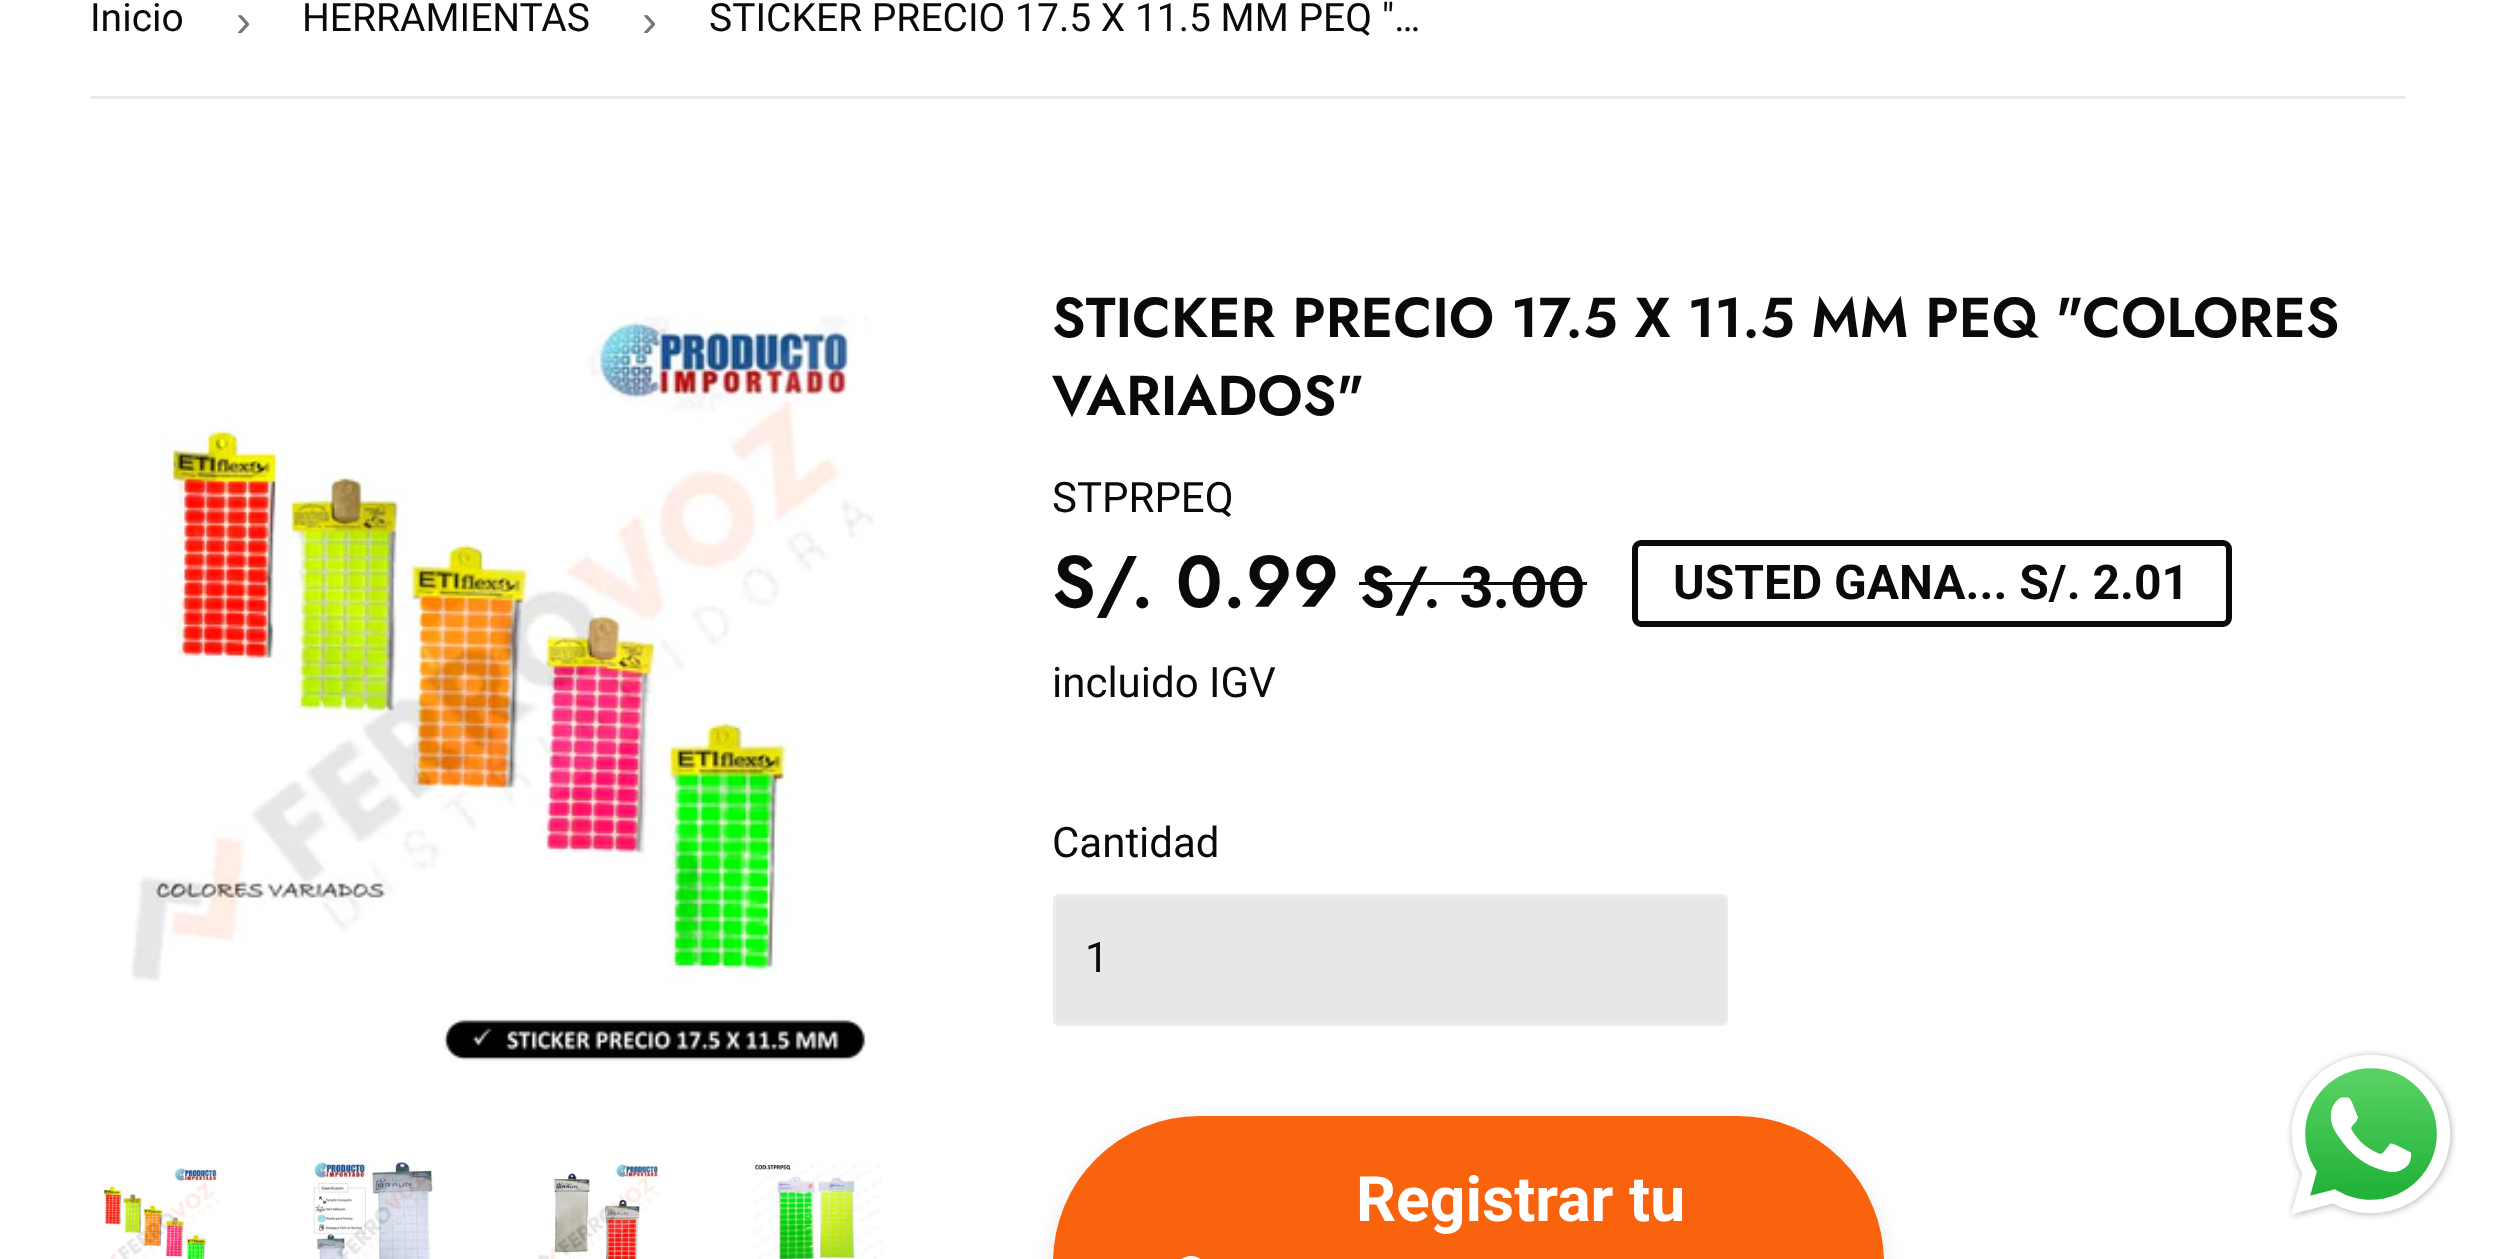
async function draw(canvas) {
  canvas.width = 2495;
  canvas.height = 1259;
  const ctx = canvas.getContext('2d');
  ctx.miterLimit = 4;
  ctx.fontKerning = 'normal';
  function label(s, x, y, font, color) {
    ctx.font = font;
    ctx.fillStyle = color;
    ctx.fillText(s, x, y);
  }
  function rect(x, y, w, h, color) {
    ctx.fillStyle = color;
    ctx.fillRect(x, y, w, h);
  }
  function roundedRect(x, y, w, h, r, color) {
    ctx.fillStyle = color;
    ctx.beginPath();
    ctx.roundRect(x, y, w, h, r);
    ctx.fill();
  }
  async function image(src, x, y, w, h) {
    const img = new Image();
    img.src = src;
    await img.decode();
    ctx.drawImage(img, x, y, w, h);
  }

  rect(0, 0, 2495, 1259, '#fff');
  rect(90, 96, 2316, 3, '#ececec');
  label('Inicio', 90, 31, '39px Roboto', '#0a0a0a');
  label('›', 236, 36, '45px Liberation Sans', '#767676');
  label('HERRAMIENTAS', 302, 31, '39px Roboto', '#0a0a0a');
  label('›', 642, 36, '45px Liberation Sans', '#767676');
  label('STICKER PRECIO 17.5 X 11.5 MM PEQ "…', 709, 31, '39px Roboto', '#0a0a0a');
  await image('assets/img1.png', 131, 315, 743, 747);
  await image('assets/img2.png', 102, 1167, 120, 92);
  await image('assets/img3.png', 312, 1161, 122, 98);
  await image('assets/img4.png', 538, 1161, 125, 98);
  await image('assets/img5.png', 753, 1161, 129, 98);
  label('STICKER PRECIO 17.5 X 11.5 MM PEQ "COLORES', 1052, 337, '600 56px Jost', '#0a0a0a');
  label('VARIADOS"', 1052, 415, '600 56px Jost', '#0a0a0a');
  label('STPRPEQ', 1052, 512, '42px Roboto', '#0a0a0a');
  label('S/. 0.99', 1052, 607, '600 73px Jost', '#0a0a0a');
  label('S/. 3.00', 1360, 607, '600 58px Jost', '#0a0a0a');
  rect(1359, 582, 228, 3, '#0a0a0a');
  ctx.beginPath();
  ctx.roundRect(1635, 543, 594, 81, 6);
  ctx.strokeStyle = '#0a0a0a';
  ctx.lineWidth = 6;
  ctx.stroke();
  label('USTED GANA... S/. 2.01', 1673, 599, 'bold 48px Roboto', '#0a0a0a');
  label('incluido IGV', 1052, 697, '42px Roboto', '#0a0a0a');
  label('Cantidad', 1052, 857, '42px Roboto', '#0a0a0a');
  ctx.fillStyle = '#e7e7e7';
  ctx.beginPath();
  ctx.roundRect(1054.5, 895.5, 672, 129, 4.5);
  ctx.fill();
  ctx.strokeStyle = '#ececec';
  ctx.lineWidth = 3;
  ctx.stroke();
  label('1', 1085, 972, '42px Roboto', '#0a0a0a');
  ctx.fillStyle = '#0000001a';
  ctx.filter = 'blur(10.5px)';
  ctx.beginPath();
  ctx.roundRect(1053, 1122, 831, 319, 150);
  ctx.fill();
  ctx.filter = 'none';
  roundedRect(1053, 1116, 831, 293, 150, '#f9630e');
  label('Registrar tu', 1356, 1221, 'bold 62.5px Roboto', '#fff');
  await image('assets/img6.png', 1181, 1256, 20, 3);
  await image('assets/img7.png', 2287, 1050, 170, 170);
}

draw(document.querySelector('canvas'));
